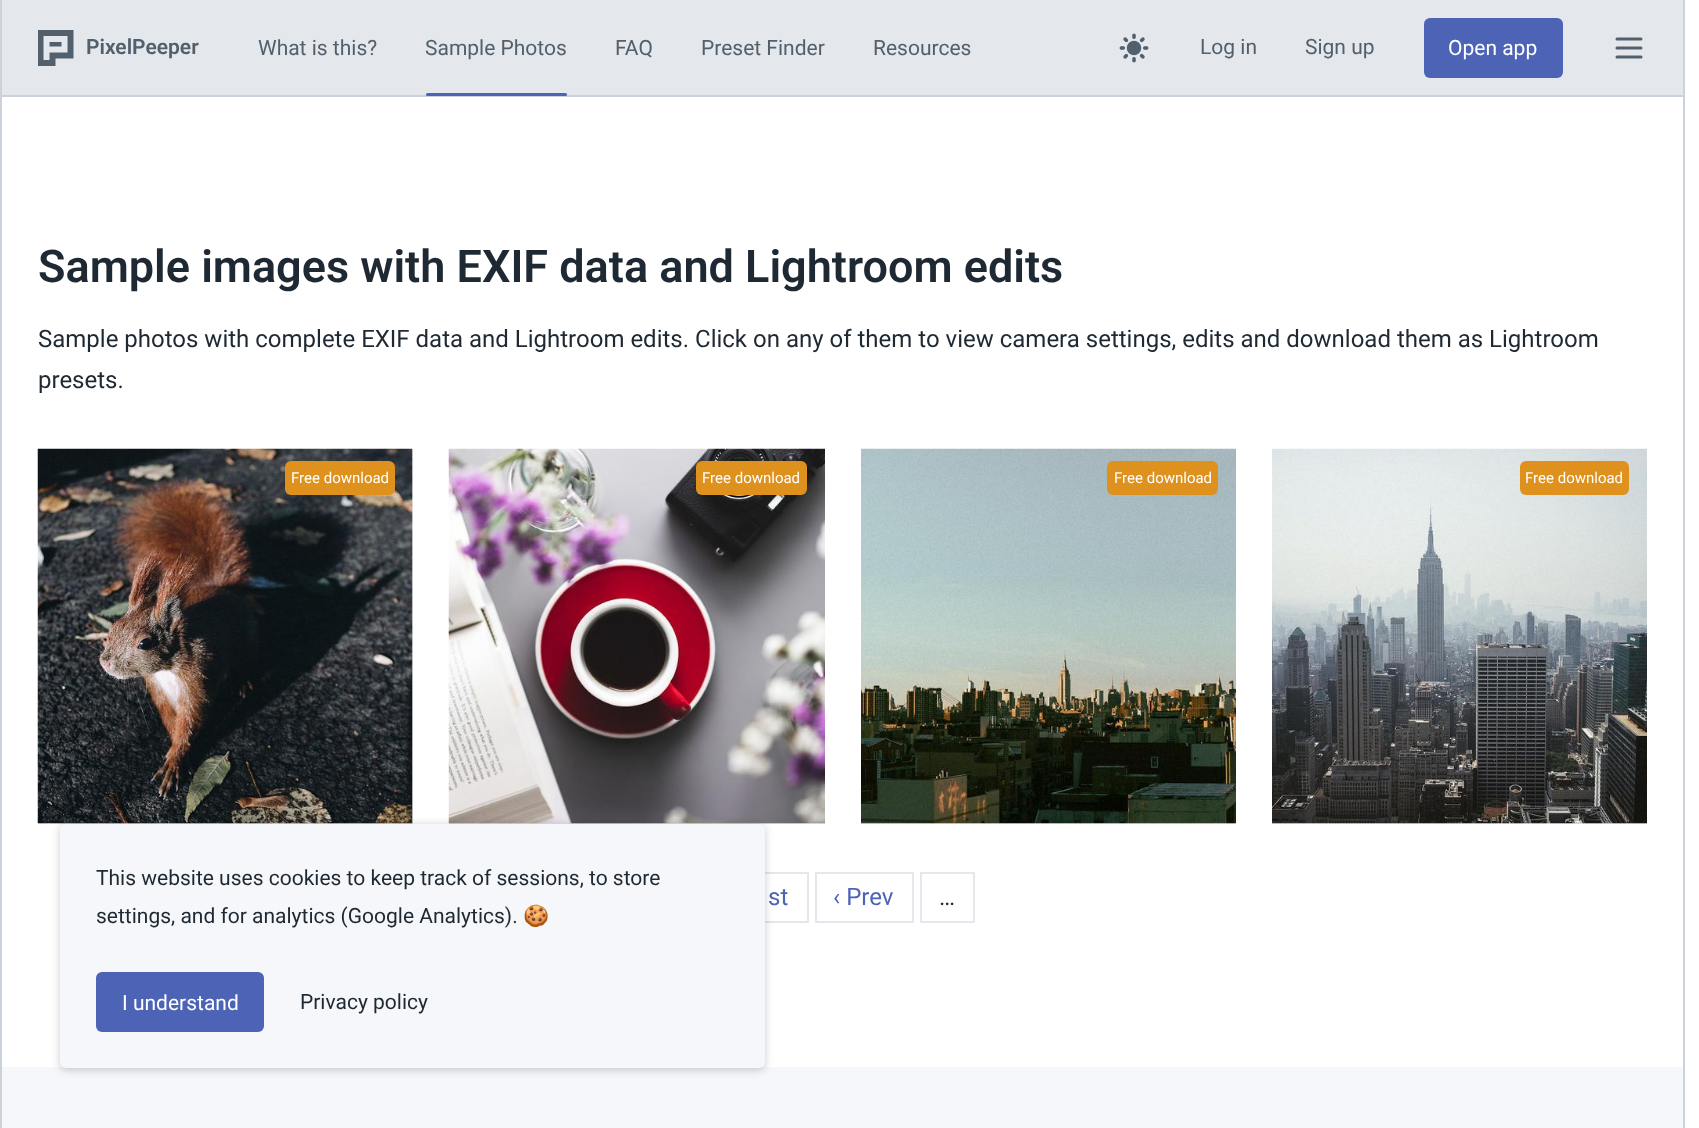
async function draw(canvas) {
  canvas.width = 1699;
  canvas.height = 1128;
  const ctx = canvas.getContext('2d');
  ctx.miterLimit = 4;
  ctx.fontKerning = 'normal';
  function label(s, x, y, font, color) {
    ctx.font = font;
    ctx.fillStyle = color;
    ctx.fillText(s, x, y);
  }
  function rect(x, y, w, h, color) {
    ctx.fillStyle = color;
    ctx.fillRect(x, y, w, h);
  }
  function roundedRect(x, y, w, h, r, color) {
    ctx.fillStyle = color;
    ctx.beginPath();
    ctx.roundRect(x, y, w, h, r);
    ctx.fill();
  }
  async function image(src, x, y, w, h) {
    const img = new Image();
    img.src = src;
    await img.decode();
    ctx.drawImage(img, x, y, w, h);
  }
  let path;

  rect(0, 0, 1699, 1128, '#fff');
  rect(2, 0, 1681, 95, '#e4e7eb');
  rect(1683, 0, 2, 1128, '#cbd2d9');
  rect(0, 96, 2, 1032, '#cbd2d9');
  rect(0, 95, 1685, 2, '#cbd2d9');
  rect(0, 0, 2, 96, '#cbd2d9');
  await image('assets/img1.png', 38, 30, 36, 36);
  label('PixelPeeper', 86, 54, '600 21px Roboto', '#52606d');
  label('What is this?', 258, 55, '21px Roboto', '#52606d');
  label('Sample Photos', 425, 55, '21px Roboto', '#52606d');
  roundedRect(426, 93, 141, 3, 1.5, '#4c63b6');
  label('FAQ', 615, 55, '21px Roboto', '#52606d');
  label('Preset Finder', 701, 55, '21px Roboto', '#52606d');
  label('Resources', 873, 55, '21px Roboto', '#52606d');
  await image('assets/img2.png', 1119, 33, 30, 30);
  label('Log in', 1200, 54, '21px Roboto', '#52606d');
  label('Sign up', 1305, 54, '21px Roboto', '#52606d');
  roundedRect(1424, 18, 139, 60, 6, '#4c63b6');
  label('Open app', 1448, 55, '21px Roboto', '#fff');
  path = new Path2D('M1617 39H1641M1617 48H1641M1617 57H1641');
  ctx.strokeStyle = '#52606d';
  ctx.lineWidth = 3;
  ctx.lineCap = 'round';
  ctx.lineJoin = 'round';
  ctx.stroke(path);
  label('Sample images with EXIF data and Lightroom edits', 38, 282, '600 45px Roboto', '#1f2933');
  label('Sample photos with complete EXIF data and Lightroom edits. Click on any of them to view camera settings, edits and download them as Lightroom', 38, 347, '24px Roboto', '#1f2933');
  label('presets.', 38, 388, '24px Roboto', '#1f2933');
  rect(38, 449, 375, 375, '#e4e7eb');
  await image('assets/img3.png', 37, 448, 376, 376);
  roundedRect(285, 461, 110, 34, 6, '#de911d');
  label('Free download', 291, 483, '15px Roboto', '#fff');
  rect(449, 823, 376, 1, '#e4e7eb');
  await image('assets/img4.png', 448, 448, 377, 376);
  roundedRect(696, 461, 111, 34, 6, '#de911d');
  label('Free download', 702, 483, '15px Roboto', '#fff');
  rect(861, 823, 375, 1, '#e4e7eb');
  await image('assets/img5.png', 861, 448, 375, 376);
  roundedRect(1107, 461, 111, 34, 6, '#de911d');
  label('Free download', 1114, 483, '15px Roboto', '#fff');
  rect(1272, 823, 375, 1, '#e4e7eb');
  await image('assets/img6.png', 1272, 448, 375, 376);
  roundedRect(1520, 461, 109, 34, 6, '#de911d');
  label('Free download', 1525, 483, '15px Roboto', '#fff');
  ctx.strokeStyle = '#e4e7eb';
  ctx.lineWidth = 2;
  ctx.lineJoin = 'miter';
  ctx.strokeRect(705, 873, 103, 49);
  label('st', 768, 905, '24px Roboto', '#4c63b6');
  ctx.strokeRect(816, 873, 97, 49);
  label('‹ Prev', 833, 905, '24px Roboto', '#4c63b6');
  ctx.strokeRect(921, 873, 53, 49);
  label('…', 939, 905, '24px Roboto', '#1f2933');
  rect(2, 1067, 1681, 61, '#f5f7fa');
  ctx.fillStyle = '#00000033';
  ctx.filter = 'blur(4px)';
  ctx.beginPath();
  ctx.roundRect(60, 825, 705, 245, 6);
  ctx.fill();
  ctx.filter = 'none';
  roundedRect(60, 824, 705, 244, 6, '#f5f7fa');
  label('This website uses cookies to keep track of sessions, to store', 96, 885, '21px Roboto', '#1f2933');
  label('settings, and for analytics (Google Analytics).', 96, 923, '21px Roboto', '#1f2933');
  label('🍪', 523, 923, '21px Noto Color Emoji', '#1f2933');
  roundedRect(96, 972, 168, 60, 6, '#4c63b6');
  label('I understand', 122, 1010, '21px Roboto', '#fff');
  label('Privacy policy', 300, 1009, '21px Roboto', '#1f2933');
}

draw(document.querySelector('canvas'));
